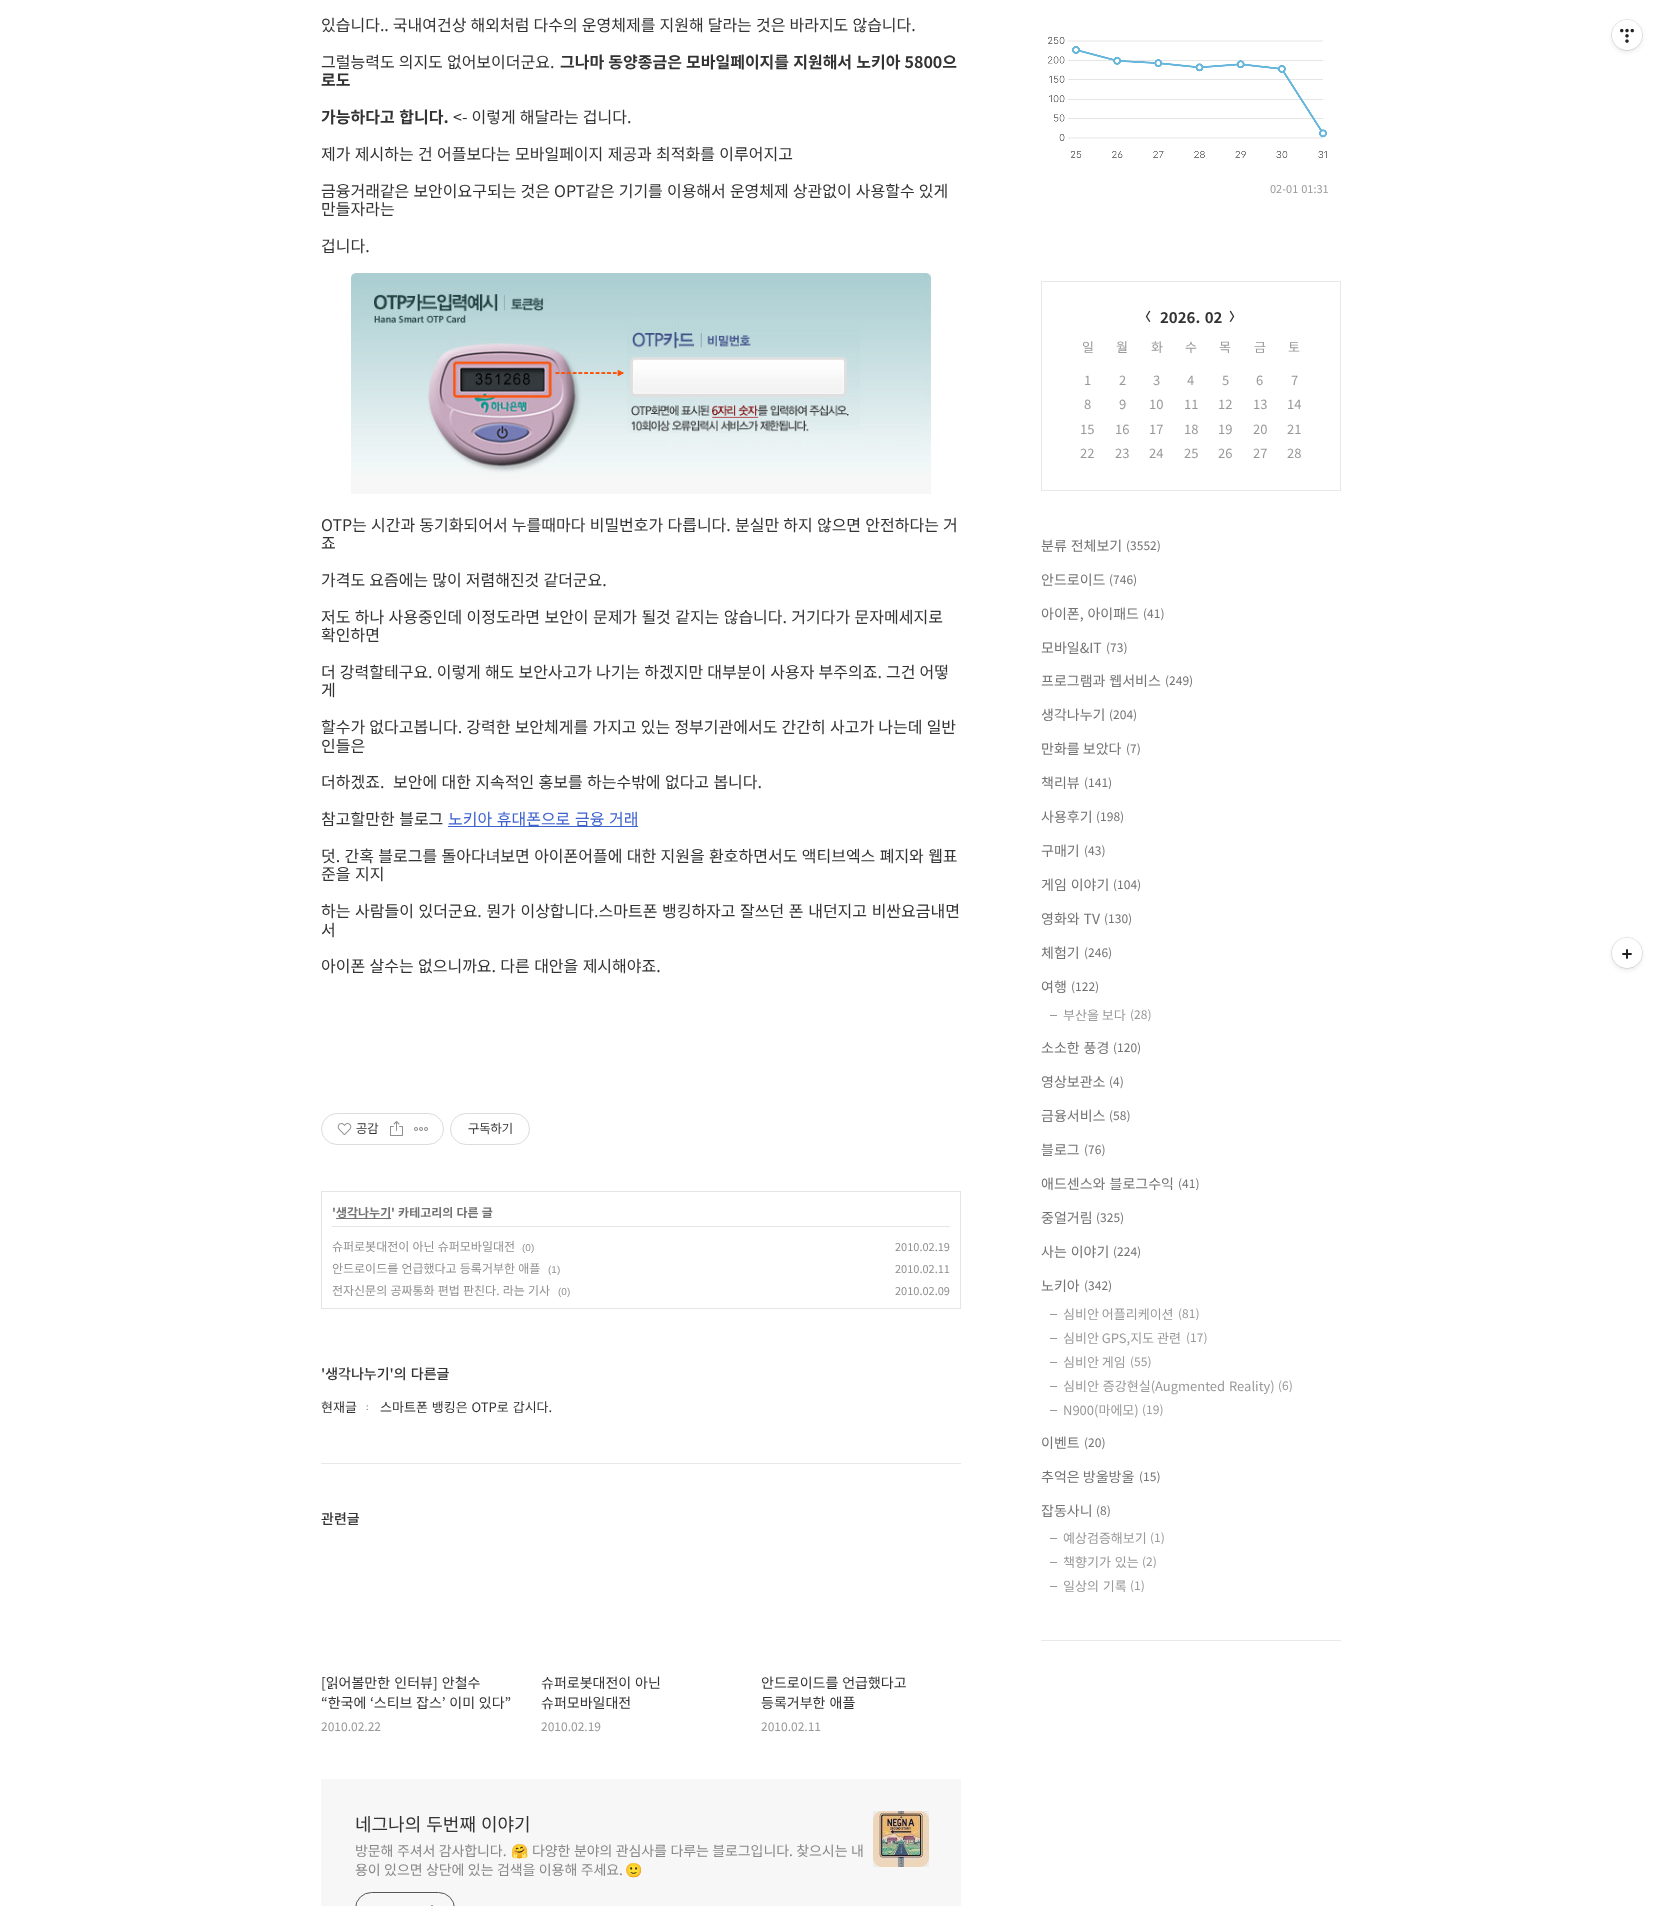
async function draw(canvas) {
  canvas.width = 1662;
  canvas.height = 1906;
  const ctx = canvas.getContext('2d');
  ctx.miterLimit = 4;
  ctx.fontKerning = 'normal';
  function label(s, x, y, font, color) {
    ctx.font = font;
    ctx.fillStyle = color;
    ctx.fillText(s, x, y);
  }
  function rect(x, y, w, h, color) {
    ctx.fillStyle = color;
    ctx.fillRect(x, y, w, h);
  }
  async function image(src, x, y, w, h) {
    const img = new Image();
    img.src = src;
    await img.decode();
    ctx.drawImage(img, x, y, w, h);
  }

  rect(0, 0, 1662, 1906, '#fff');
  ctx.wordSpacing = '0.5px';
  label('있습니다.. 국내여건상 해외처럼 다수의 운영체제를 지원해 달라는 것은 바라지도 않습니다.', 321, 31, '16px Noto Sans KR', '#333');
  label('그럴능력도 의지도 없어보이더군요.', 321, 68, '16px Noto Sans KR', '#333');
  label('그나마 동양종금은 모바일페이지를 지원해서 노키아 5800으', 560, 68, 'bold 16px Noto Sans KR', '#333');
  ctx.wordSpacing = '0px';
  label('로도', 321, 86, 'bold 16px Noto Sans KR', '#333');
  ctx.wordSpacing = '1px';
  label('가능하다고 합니다.', 321, 123, 'bold 16px Noto Sans KR', '#333');
  ctx.wordSpacing = '0.5px';
  label('<- 이렇게 해달라는 겁니다.', 453, 123, '16px Noto Sans KR', '#333');
  ctx.wordSpacing = '0.75px';
  label('제가 제시하는 건 어플보다는 모바일페이지 제공과 최적화를 이루어지고', 321, 160, '16px Noto Sans KR', '#333');
  ctx.wordSpacing = '0.5px';
  label('금융거래같은 보안이요구되는 것은 OPT같은 기기를 이용해서 운영체제 상관없이 사용할수 있게', 321, 197, '16px Noto Sans KR', '#333');
  ctx.wordSpacing = '0px';
  label('만들자라는', 321, 215, '16px Noto Sans KR', '#333');
  label('겁니다.', 321, 252, '16px Noto Sans KR', '#333');
  await image('assets/img1.png', 351, 273, 580, 221);
  ctx.wordSpacing = '0.6px';
  label('OTP는 시간과 동기화되어서 누를때마다 비밀번호가 다릅니다. 분실만 하지 않으면 안전하다는 거', 321, 531, '16px Noto Sans KR', '#333');
  ctx.wordSpacing = '0px';
  label('죠', 321, 549, '16px Noto Sans KR', '#333');
  ctx.wordSpacing = '0.5px';
  label('가격도 요즘에는 많이 저렴해진것 같더군요.', 321, 586, '16px Noto Sans KR', '#333');
  ctx.wordSpacing = '0.75px';
  label('저도 하나 사용중인데 이정도라면 보안이 문제가 될것 같지는 않습니다. 거기다가 문자메세지로', 321, 623, '16px Noto Sans KR', '#333');
  ctx.wordSpacing = '0px';
  label('확인하면', 321, 641, '16px Noto Sans KR', '#333');
  ctx.wordSpacing = '0.5px';
  label('더 강력할테구요. 이렇게 해도 보안사고가 나기는 하겠지만 대부분이 사용자 부주의죠. 그건 어떻', 321, 678, '16px Noto Sans KR', '#333');
  ctx.wordSpacing = '0px';
  label('게', 321, 696, '16px Noto Sans KR', '#333');
  ctx.wordSpacing = '0.6px';
  label('할수가 없다고봅니다. 강력한 보안체게를 가지고 있는 정부기관에서도 간간히 사고가 나는데 일반', 321, 733, '16px Noto Sans KR', '#333');
  ctx.wordSpacing = '0px';
  label('인들은', 321, 752, '16px Noto Sans KR', '#333');
  ctx.wordSpacing = '0.75px';
  label('더하겠죠.  보안에 대한 지속적인 홍보를 하는수밖에 없다고 봅니다.', 321, 788, '16px Noto Sans KR', '#333');
  ctx.wordSpacing = '1px';
  label('참고할만한 블로그', 321, 825, '16px Noto Sans KR', '#333');
  rect(448, 826, 190, 1, '#3d62ce');
  label('노키아 휴대폰으로 금융 거래', 448, 825, '16px Noto Sans KR', '#3d62ce');
  ctx.wordSpacing = '0.75px';
  label('덧. 간혹 블로그를 돌아다녀보면 아이폰어플에 대한 지원을 환호하면서도 액티브엑스 폐지와 웹표', 321, 862, '16px Noto Sans KR', '#333');
  ctx.wordSpacing = '1px';
  label('준을 지지', 321, 880, '16px Noto Sans KR', '#333');
  label('하는 사람들이 있더군요. 뭔가 이상합니다.스마트폰 뱅킹하자고 잘쓰던 폰 내던지고 비싼요금내면', 321, 917, '16px Noto Sans KR', '#333');
  ctx.wordSpacing = '0px';
  label('서', 321, 936, '16px Noto Sans KR', '#333');
  ctx.wordSpacing = '0.75px';
  label('아이폰 살수는 없으니까요. 다른 대안을 제시해야죠.', 321, 972, '16px Noto Sans KR', '#333');
  ctx.beginPath();
  ctx.roundRect(321.5, 1113.5, 122, 31, 15.5);
  ctx.strokeStyle = '#dcdcdc';
  ctx.stroke();
  await image('assets/img2.png', 337, 1123, 15, 12);
  ctx.wordSpacing = '0px';
  label('공감', 356, 1133, '13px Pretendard', '#333');
  await image('assets/img3.png', 390, 1121, 13, 15);
  await image('assets/img4.png', 414, 1127, 14, 4);
  ctx.beginPath();
  ctx.roundRect(450.5, 1113.5, 79, 31, 15.5);
  ctx.stroke();
  label('구독하기', 468, 1133, '13px Pretendard', '#333');
  ctx.strokeStyle = '#e5e5e5';
  ctx.strokeRect(321.5, 1191.5, 639, 117);
  rect(332, 1226, 618, 1, '#e5e5e5');
  label('\'', 332, 1217, 'bold 12px Noto Sans KR', '#737373');
  rect(336, 1218, 55, 1, '#737373');
  label('생각나누기', 336, 1217, 'bold 12px Noto Sans KR', '#737373');
  ctx.wordSpacing = '0.5px';
  label('\' 카테고리의 다른 글', 391, 1217, 'bold 12px Noto Sans KR', '#737373');
  label('슈퍼로봇대전이 아닌 슈퍼모바일대전', 332, 1251, '12px Noto Sans KR', '#909090');
  ctx.wordSpacing = '0px';
  label('(0)', 522, 1251, '10px Liberation Sans', '#909090');
  label('2010.02.19', 895, 1251, '11px Noto Sans KR', '#909090');
  ctx.wordSpacing = '0.5px';
  label('안드로이드를 언급했다고 등록거부한 애플', 332, 1273, '12px Noto Sans KR', '#909090');
  ctx.wordSpacing = '0px';
  label('(1)', 548, 1273, '10px Liberation Sans', '#909090');
  label('2010.02.11', 895, 1273, '11px Noto Sans KR', '#909090');
  ctx.wordSpacing = '0.5px';
  label('전자신문의 공짜통화 편법 판친다. 라는 기사', 332, 1295, '12px Noto Sans KR', '#909090');
  ctx.wordSpacing = '0px';
  label('(0)', 558, 1295, '10px Liberation Sans', '#909090');
  label('2010.02.09', 895, 1295, '11px Noto Sans KR', '#909090');
  rect(321, 1463, 640, 1, '#e8e8e8');
  ctx.wordSpacing = '1px';
  label('\'생각나누기\'의 다른글', 321, 1379, '500 14px Noto Sans KR', '#333');
  ctx.wordSpacing = '0px';
  label('현재글', 321, 1412, '13px Noto Sans KR', '#333');
  label(':', 366, 1410, '9px Noto Sans KR', '#737373');
  ctx.wordSpacing = '1px';
  label('스마트폰 뱅킹은 OTP로 갑시다.', 380, 1412, '13px Noto Sans KR', '#333');
  ctx.wordSpacing = '0px';
  label('관련글', 321, 1524, '500 14px Noto Sans KR', '#333');
  ctx.wordSpacing = '1px';
  label('[읽어볼만한 인터뷰] 안철수', 321, 1688, '14px Noto Sans KR', '#333');
  ctx.wordSpacing = '0.5px';
  label('“한국에 ‘스티브 잡스’ 이미 있다”', 321, 1708, '14px Noto Sans KR', '#333');
  ctx.wordSpacing = '0px';
  label('2010.02.22', 321, 1731, '12px Noto Sans KR', '#999');
  ctx.wordSpacing = '0.75px';
  label('슈퍼로봇대전이 아닌', 541, 1688, '14px Noto Sans KR', '#333');
  ctx.wordSpacing = '0px';
  label('슈퍼모바일대전', 541, 1708, '14px Noto Sans KR', '#333');
  label('2010.02.19', 541, 1731, '12px Noto Sans KR', '#999');
  ctx.wordSpacing = '0.75px';
  label('안드로이드를 언급했다고', 761, 1688, '14px Noto Sans KR', '#333');
  ctx.wordSpacing = '1px';
  label('등록거부한 애플', 761, 1708, '14px Noto Sans KR', '#333');
  ctx.wordSpacing = '0px';
  label('2010.02.11', 761, 1731, '12px Noto Sans KR', '#999');
  rect(321, 1779, 640, 127, '#f7f7f7');
  ctx.wordSpacing = '1px';
  label('네그나의 두번째 이야기', 355, 1831, '18px Noto Sans KR', '#333');
  ctx.letterSpacing = '-0.1px';
  ctx.wordSpacing = '0.5px';
  label('방문해 주셔서 감사합니다.', 355, 1856, '14px Noto Sans KR', '#888');
  ctx.wordSpacing = '0px';
  label('🤗', 511, 1856, '14px Noto Color Emoji', '#888');
  ctx.wordSpacing = '0.5px';
  label('다양한 분야의 관심사를 다루는 블로그입니다. 찾으시는 내', 532, 1856, '14px Noto Sans KR', '#888');
  label('용이 있으면 상단에 있는 검색을 이용해 주세요.', 355, 1875, '14px Noto Sans KR', '#888');
  ctx.wordSpacing = '0px';
  label('🙂', 625, 1875, '14px Noto Color Emoji', '#888');
  ctx.beginPath();
  ctx.roundRect(355.5, 1892.5, 99, 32, 17.5);
  ctx.strokeStyle = '#555';
  ctx.stroke();
  rect(431, 1905, 2, 1, '#9f9f9f');
  await image('assets/img5.png', 873, 1811, 56, 56);
  rect(873, 1811, 56, 56, '#0000000a');
  await image('assets/img6.png', 1048, 37, 279, 121);
  ctx.letterSpacing = '0px';
  ctx.wordSpacing = '0.5px';
  label('02-01 01:31', 1270, 193, '11px Noto Sans KR', '#999');
  ctx.strokeStyle = '#e8e8e8';
  ctx.strokeRect(1041.5, 281.5, 299, 209);
  ctx.wordSpacing = '0px';
  label('〈', 1139, 321, 'bold 12px Noto Sans KR', '#333');
  ctx.wordSpacing = '1px';
  label('2026. 02', 1160, 323, 'bold 15px Noto Sans KR', '#333');
  ctx.wordSpacing = '0px';
  label('〉', 1229, 321, 'bold 12px Noto Sans KR', '#333');
  label('일', 1082, 352, '13px Noto Sans KR', '#999');
  label('월', 1116, 352, '13px Noto Sans KR', '#999');
  label('화', 1151, 352, '13px Noto Sans KR', '#999');
  label('수', 1185, 352, '13px Noto Sans KR', '#999');
  label('목', 1219, 352, '13px Noto Sans KR', '#999');
  label('금', 1254, 352, '13px Noto Sans KR', '#999');
  label('토', 1288, 352, '13px Noto Sans KR', '#999');
  label('1', 1084, 385, '13px Noto Sans KR', '#999');
  label('2', 1119, 385, '13px Noto Sans KR', '#999');
  label('3', 1153, 385, '13px Noto Sans KR', '#999');
  label('4', 1187, 385, '13px Noto Sans KR', '#999');
  label('5', 1222, 385, '13px Noto Sans KR', '#999');
  label('6', 1256, 385, '13px Noto Sans KR', '#999');
  label('7', 1291, 385, '13px Noto Sans KR', '#999');
  label('8', 1084, 409, '13px Noto Sans KR', '#999');
  label('9', 1119, 409, '13px Noto Sans KR', '#999');
  label('10', 1149, 409, '13px Noto Sans KR', '#999');
  label('11', 1184, 409, '13px Noto Sans KR', '#999');
  label('12', 1218, 409, '13px Noto Sans KR', '#999');
  label('13', 1253, 409, '13px Noto Sans KR', '#999');
  label('14', 1287, 409, '13px Noto Sans KR', '#999');
  label('15', 1080, 434, '13px Noto Sans KR', '#999');
  label('16', 1115, 434, '13px Noto Sans KR', '#999');
  label('17', 1149, 434, '13px Noto Sans KR', '#999');
  label('18', 1184, 434, '13px Noto Sans KR', '#999');
  label('19', 1218, 434, '13px Noto Sans KR', '#999');
  label('20', 1253, 434, '13px Noto Sans KR', '#999');
  label('21', 1287, 434, '13px Noto Sans KR', '#999');
  label('22', 1080, 458, '13px Noto Sans KR', '#999');
  label('23', 1115, 458, '13px Noto Sans KR', '#999');
  label('24', 1149, 458, '13px Noto Sans KR', '#999');
  label('25', 1184, 458, '13px Noto Sans KR', '#999');
  label('26', 1218, 458, '13px Noto Sans KR', '#999');
  label('27', 1253, 458, '13px Noto Sans KR', '#999');
  label('28', 1287, 458, '13px Noto Sans KR', '#999');
  rect(1041, 1640, 300, 1, '#e8e8e8');
  ctx.wordSpacing = '0.75px';
  label('분류 전체보기', 1041, 551, '14px Noto Sans KR', '#737373');
  ctx.wordSpacing = '0px';
  label('(3552)', 1126, 550, '12px Noto Sans KR', '#737373');
  label('안드로이드', 1041, 585, '14px Noto Sans KR', '#737373');
  label('(746)', 1109, 584, '12px Noto Sans KR', '#737373');
  ctx.wordSpacing = '0.75px';
  label('아이폰, 아이패드', 1041, 619, '14px Noto Sans KR', '#737373');
  ctx.wordSpacing = '0px';
  label('(41)', 1143, 618, '12px Noto Sans KR', '#737373');
  label('모바일&IT', 1041, 653, '14px Noto Sans KR', '#737373');
  label('(73)', 1106, 652, '12px Noto Sans KR', '#737373');
  ctx.wordSpacing = '0.75px';
  label('프로그램과 웹서비스', 1041, 686, '14px Noto Sans KR', '#737373');
  ctx.wordSpacing = '0px';
  label('(249)', 1165, 685, '12px Noto Sans KR', '#737373');
  label('생각나누기', 1041, 720, '14px Noto Sans KR', '#737373');
  label('(204)', 1109, 719, '12px Noto Sans KR', '#737373');
  label('만화를 보았다', 1041, 754, '14px Noto Sans KR', '#737373');
  label('(7)', 1126, 753, '12px Noto Sans KR', '#737373');
  label('책리뷰', 1041, 788, '14px Noto Sans KR', '#737373');
  label('(141)', 1084, 787, '12px Noto Sans KR', '#737373');
  label('사용후기', 1041, 822, '14px Noto Sans KR', '#737373');
  label('(198)', 1096, 821, '12px Noto Sans KR', '#737373');
  label('구매기', 1041, 856, '14px Noto Sans KR', '#737373');
  label('(43)', 1084, 855, '12px Noto Sans KR', '#737373');
  ctx.wordSpacing = '0.75px';
  label('게임 이야기', 1041, 890, '14px Noto Sans KR', '#737373');
  ctx.wordSpacing = '0px';
  label('(104)', 1113, 889, '12px Noto Sans KR', '#737373');
  ctx.wordSpacing = '0.75px';
  label('영화와 TV', 1041, 924, '14px Noto Sans KR', '#737373');
  ctx.wordSpacing = '0px';
  label('(130)', 1104, 923, '12px Noto Sans KR', '#737373');
  label('체험기', 1041, 958, '14px Noto Sans KR', '#737373');
  label('(246)', 1084, 957, '12px Noto Sans KR', '#737373');
  label('여행', 1041, 992, '14px Noto Sans KR', '#737373');
  label('(122)', 1071, 991, '12px Noto Sans KR', '#737373');
  rect(1050, 1015, 7, 1, '#999');
  label('부산을 보다', 1063, 1020, '13px Noto Sans KR', '#999');
  label('(28)', 1130, 1019, '12px Noto Sans KR', '#999');
  ctx.wordSpacing = '0.75px';
  label('소소한 풍경', 1041, 1053, '14px Noto Sans KR', '#737373');
  ctx.wordSpacing = '0px';
  label('(120)', 1113, 1052, '12px Noto Sans KR', '#737373');
  label('영상보관소', 1041, 1087, '14px Noto Sans KR', '#737373');
  label('(4)', 1109, 1086, '12px Noto Sans KR', '#737373');
  label('금융서비스', 1041, 1121, '14px Noto Sans KR', '#737373');
  label('(58)', 1109, 1120, '12px Noto Sans KR', '#737373');
  label('블로그', 1041, 1155, '14px Noto Sans KR', '#737373');
  label('(76)', 1084, 1154, '12px Noto Sans KR', '#737373');
  ctx.wordSpacing = '1px';
  label('애드센스와 블로그수익', 1041, 1189, '14px Noto Sans KR', '#737373');
  ctx.wordSpacing = '0px';
  label('(41)', 1178, 1188, '12px Noto Sans KR', '#737373');
  label('중얼거림', 1041, 1223, '14px Noto Sans KR', '#737373');
  label('(325)', 1096, 1222, '12px Noto Sans KR', '#737373');
  ctx.wordSpacing = '0.75px';
  label('사는 이야기', 1041, 1257, '14px Noto Sans KR', '#737373');
  ctx.wordSpacing = '0px';
  label('(224)', 1113, 1256, '12px Noto Sans KR', '#737373');
  label('노키아', 1041, 1291, '14px Noto Sans KR', '#737373');
  label('(342)', 1084, 1290, '12px Noto Sans KR', '#737373');
  rect(1050, 1314, 7, 1, '#999');
  label('심비안 어플리케이션', 1063, 1319, '13px Noto Sans KR', '#999');
  label('(81)', 1178, 1318, '12px Noto Sans KR', '#999');
  rect(1050, 1338, 7, 1, '#999');
  label('심비안 GPS,지도 관련', 1063, 1343, '13px Noto Sans KR', '#999');
  label('(17)', 1186, 1342, '12px Noto Sans KR', '#999');
  rect(1050, 1362, 7, 1, '#999');
  label('심비안 게임', 1063, 1367, '13px Noto Sans KR', '#999');
  label('(55)', 1130, 1366, '12px Noto Sans KR', '#999');
  rect(1050, 1386, 7, 1, '#999');
  ctx.wordSpacing = '1px';
  label('심비안 증강현실(Augmented Reality)', 1063, 1391, '13px Noto Sans KR', '#999');
  ctx.wordSpacing = '0px';
  label('(6)', 1278, 1390, '12px Noto Sans KR', '#999');
  rect(1050, 1410, 7, 1, '#999');
  label('N900(마에모)', 1063, 1415, '13px Noto Sans KR', '#999');
  label('(19)', 1142, 1414, '12px Noto Sans KR', '#999');
  label('이벤트', 1041, 1448, '14px Noto Sans KR', '#737373');
  label('(20)', 1084, 1447, '12px Noto Sans KR', '#737373');
  label('추억은 방울방울', 1041, 1482, '14px Noto Sans KR', '#737373');
  label('(15)', 1139, 1481, '12px Noto Sans KR', '#737373');
  label('잡동사니', 1041, 1516, '14px Noto Sans KR', '#737373');
  label('(8)', 1096, 1515, '12px Noto Sans KR', '#737373');
  rect(1050, 1538, 7, 1, '#999');
  label('예상검증해보기', 1063, 1543, '13px Noto Sans KR', '#999');
  label('(1)', 1150, 1542, '12px Noto Sans KR', '#999');
  rect(1050, 1562, 7, 1, '#999');
  ctx.wordSpacing = '1px';
  label('책향기가 있는', 1063, 1567, '13px Noto Sans KR', '#999');
  ctx.wordSpacing = '0px';
  label('(2)', 1142, 1566, '12px Noto Sans KR', '#999');
  rect(1050, 1586, 7, 1, '#999');
  ctx.wordSpacing = '1px';
  label('일상의 기록', 1063, 1591, '13px Noto Sans KR', '#999');
  ctx.wordSpacing = '0px';
  label('(1)', 1130, 1590, '12px Noto Sans KR', '#999');
  ctx.fillStyle = '#0000001a';
  ctx.filter = 'blur(2.5px)';
  ctx.beginPath();
  ctx.roundRect(1612, 22, 30, 30, 15);
  ctx.fill();
  ctx.filter = 'none';
  ctx.beginPath();
  ctx.arc(1627, 35, 15.5, 0, 2 * Math.PI);
  ctx.strokeStyle = '#0000001a';
  ctx.stroke();
  ctx.fillStyle = '#fff';
  ctx.beginPath();
  ctx.arc(1627, 35, 15, 0, 2 * Math.PI);
  ctx.fill();
  await image('assets/img7.png', 1620, 28, 14, 15);
  ctx.fillStyle = '#0000001a';
  ctx.filter = 'blur(2.5px)';
  ctx.beginPath();
  ctx.roundRect(1612, 940, 30, 30, 15);
  ctx.fill();
  ctx.filter = 'none';
  ctx.beginPath();
  ctx.arc(1627, 953, 15.5, 0, 2 * Math.PI);
  ctx.stroke();
  ctx.fillStyle = '#fff';
  ctx.beginPath();
  ctx.arc(1627, 953, 15, 0, 2 * Math.PI);
  ctx.fill();
  await image('assets/img8.png', 1622, 949, 10, 10);
}

draw(document.querySelector('canvas'));
